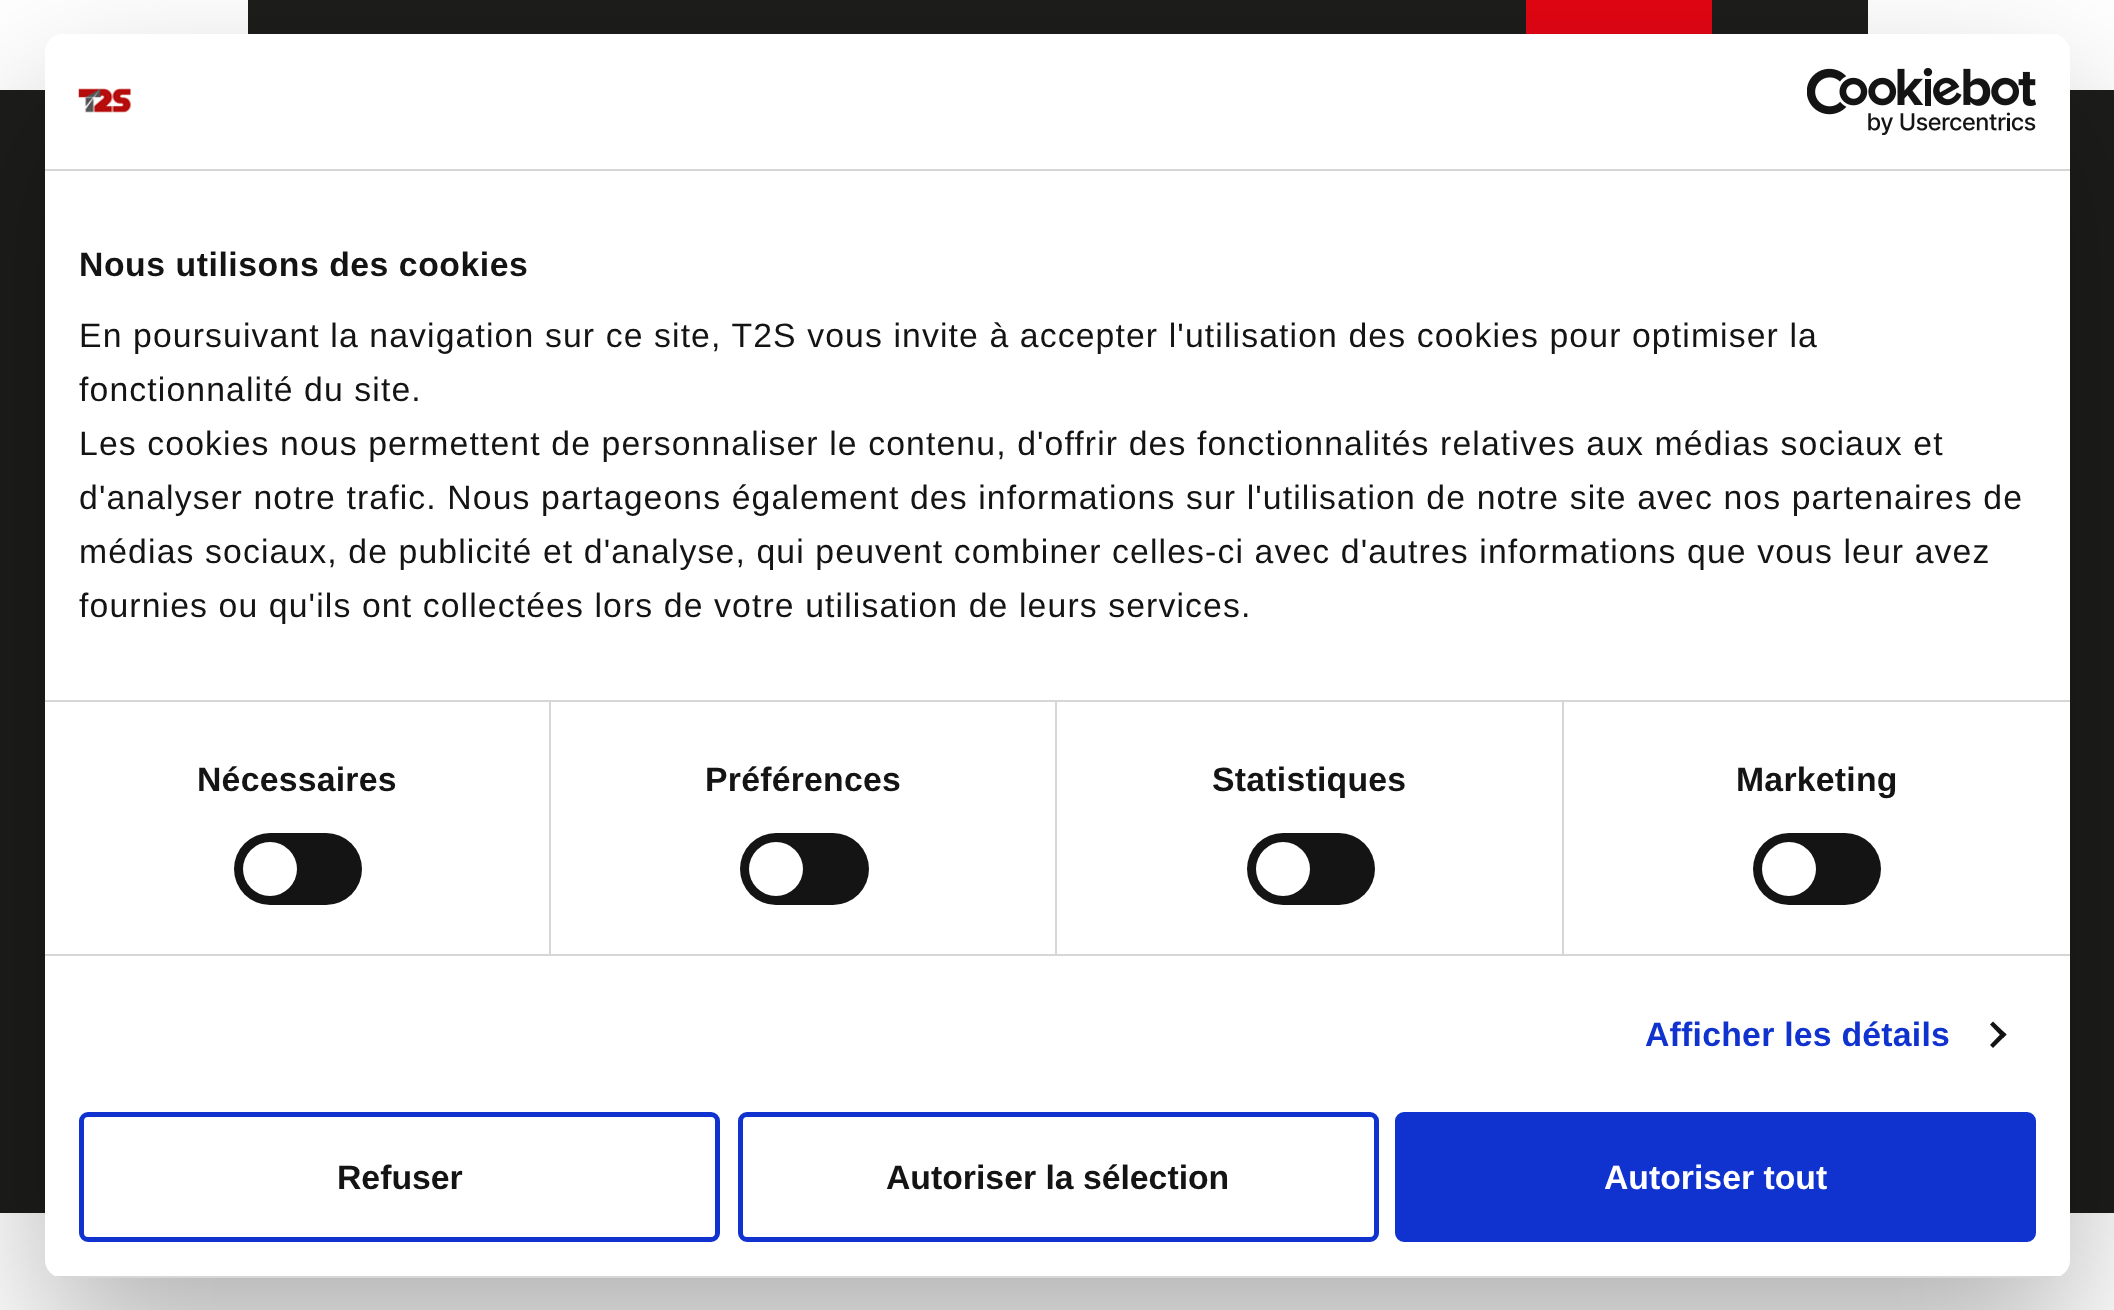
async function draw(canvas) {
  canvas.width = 2114;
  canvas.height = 1310;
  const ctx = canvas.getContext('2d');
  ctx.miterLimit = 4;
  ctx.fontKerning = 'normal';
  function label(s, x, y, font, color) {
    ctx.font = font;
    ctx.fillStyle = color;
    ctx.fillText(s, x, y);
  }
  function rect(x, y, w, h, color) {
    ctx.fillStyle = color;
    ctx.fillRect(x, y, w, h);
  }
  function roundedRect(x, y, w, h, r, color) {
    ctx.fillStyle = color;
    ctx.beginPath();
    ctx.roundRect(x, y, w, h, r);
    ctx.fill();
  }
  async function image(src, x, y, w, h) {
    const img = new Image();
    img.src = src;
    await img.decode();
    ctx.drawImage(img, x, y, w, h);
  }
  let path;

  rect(0, 0, 2114, 1310, '#fff');
  rect(248, 0, 1620, 34, '#1d1d1b');
  rect(1526, 0, 186, 34, '#e30613');
  rect(0, 90, 2114, 1123, '#1d1d1b');
  ctx.fillStyle = '#0000004d';
  ctx.filter = 'blur(76.5px)';
  ctx.beginPath();
  ctx.roundRect(45, 106, 2025, 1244, 18);
  ctx.fill();
  ctx.filter = 'none';
  roundedRect(45, 34, 2025, 1244, 18, '#fff');
  rect(45, 169, 2025, 2, '#d6d6d6');
  await image('assets/img1.png', 78, 88, 53, 25);
  await image('assets/img2.png', 1807, 68, 229, 67);
  rect(45, 700, 2025, 2, '#d6d6d6');
  ctx.letterSpacing = '0.55px';
  label('Nous utilisons des cookies', 79, 276, 'bold 33.75px Liberation Sans', '#141414');
  ctx.letterSpacing = '1.12px';
  label('En poursuivant la navigation sur ce site, T2S vous invite à accepter l\'utilisation des cookies pour optimiser la', 79, 347, '33.75px Liberation Sans', '#141414');
  label('fonctionnalité du site.', 79, 401, '33.75px Liberation Sans', '#141414');
  label('Les cookies nous permettent de personnaliser le contenu, d\'offrir des fonctionnalités relatives aux médias sociaux et', 79, 455, '33.75px Liberation Sans', '#141414');
  label('d\'analyser notre trafic. Nous partageons également des informations sur l\'utilisation de notre site avec nos partenaires de', 79, 509, '33.75px Liberation Sans', '#141414');
  label('médias sociaux, de publicité et d\'analyse, qui peuvent combiner celles-ci avec d\'autres informations que vous leur avez', 79, 563, '33.75px Liberation Sans', '#141414');
  label('fournies ou qu\'ils ont collectées lors de votre utilisation de leurs services.', 79, 617, '33.75px Liberation Sans', '#141414');
  rect(45, 954, 2025, 2, '#d6d6d6');
  rect(549, 702, 2, 252, '#d6d6d6');
  ctx.letterSpacing = '0.25px';
  label('Nécessaires', 197, 791, 'bold 33.75px Liberation Sans', '#141414');
  roundedRect(234, 833, 128, 72, 36, '#141414');
  ctx.fillStyle = '#fff';
  ctx.beginPath();
  ctx.arc(270, 869, 27, 0, 2 * Math.PI);
  ctx.fill();
  rect(1055, 702, 2, 252, '#d6d6d6');
  label('Préférences', 705, 791, 'bold 33.75px Liberation Sans', '#141414');
  roundedRect(740, 833, 129, 72, 36, '#141414');
  ctx.fillStyle = '#fff';
  ctx.beginPath();
  ctx.arc(776, 869, 27, 0, 2 * Math.PI);
  ctx.fill();
  rect(1562, 702, 2, 252, '#d6d6d6');
  label('Statistiques', 1212, 791, 'bold 33.75px Liberation Sans', '#141414');
  roundedRect(1247, 833, 128, 72, 36, '#141414');
  ctx.fillStyle = '#fff';
  ctx.beginPath();
  ctx.arc(1283, 869, 27, 0, 2 * Math.PI);
  ctx.fill();
  label('Marketing', 1736, 791, 'bold 33.75px Liberation Sans', '#141414');
  roundedRect(1753, 833, 128, 72, 36, '#141414');
  ctx.fillStyle = '#fff';
  ctx.beginPath();
  ctx.arc(1789, 869, 27, 0, 2 * Math.PI);
  ctx.fill();
  label('Afficher les détails', 1645, 1046, 'bold 33.75px Liberation Sans', '#1032cf');
  ctx.fillStyle = '#141414';
  path = new Path2D('M1993 1021.5L2006.5 1034.5L2003 1038L1990 1024.5Z');
  ctx.fill(path);
  path = new Path2D('M2003 1031.5L2006.5 1034.5L1993 1048L1990 1045Z');
  ctx.fill(path);
  ctx.save();
  ctx.beginPath();
  ctx.roundRect(45, 34, 2025, 1244, 18);
  ctx.clip();
  rect(55, 1276, 2005, 2, '#d6d6d6');
  ctx.restore();
  ctx.beginPath();
  ctx.roundRect(81.5, 1114.5, 636, 125, 6.5);
  ctx.strokeStyle = '#1032cf';
  ctx.lineWidth = 5;
  ctx.stroke();
  ctx.letterSpacing = '0px';
  label('Refuser', 337, 1189, 'bold 33.75px Liberation Sans', '#141414');
  ctx.beginPath();
  ctx.roundRect(740.5, 1114.5, 636, 125, 6.5);
  ctx.stroke();
  label('Autoriser la sélection', 886, 1189, 'bold 33.75px Liberation Sans', '#141414');
  ctx.fillStyle = '#1032cf';
  ctx.beginPath();
  ctx.roundRect(1397.5, 1114.5, 636, 125, 6.5);
  ctx.fill();
  ctx.stroke();
  label('Autoriser tout', 1604, 1189, 'bold 33.75px Liberation Sans', '#fff');
}

draw(document.querySelector('canvas'));
